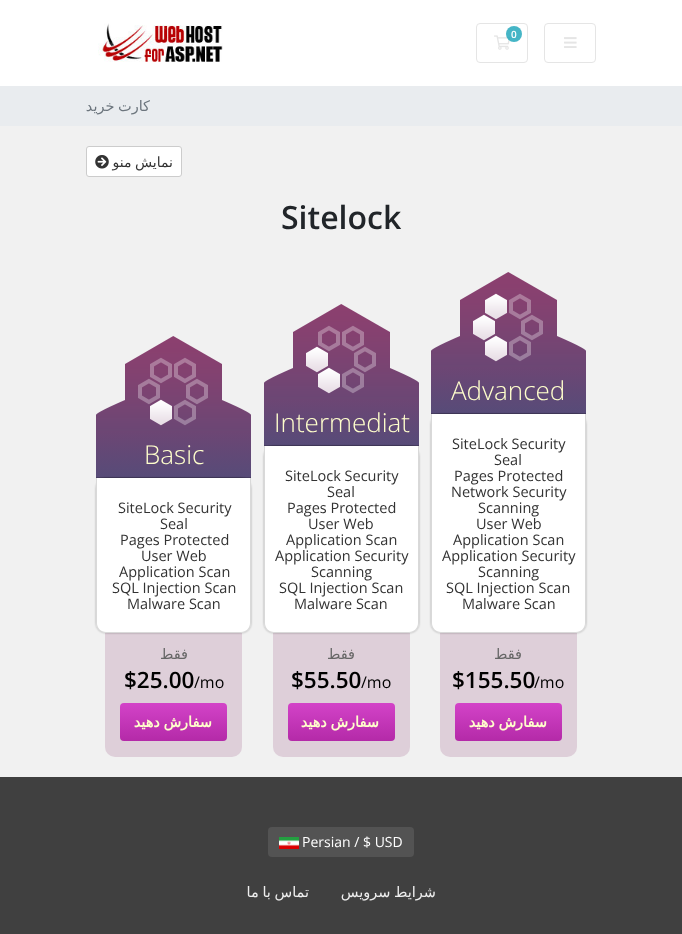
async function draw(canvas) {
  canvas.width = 682;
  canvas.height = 934;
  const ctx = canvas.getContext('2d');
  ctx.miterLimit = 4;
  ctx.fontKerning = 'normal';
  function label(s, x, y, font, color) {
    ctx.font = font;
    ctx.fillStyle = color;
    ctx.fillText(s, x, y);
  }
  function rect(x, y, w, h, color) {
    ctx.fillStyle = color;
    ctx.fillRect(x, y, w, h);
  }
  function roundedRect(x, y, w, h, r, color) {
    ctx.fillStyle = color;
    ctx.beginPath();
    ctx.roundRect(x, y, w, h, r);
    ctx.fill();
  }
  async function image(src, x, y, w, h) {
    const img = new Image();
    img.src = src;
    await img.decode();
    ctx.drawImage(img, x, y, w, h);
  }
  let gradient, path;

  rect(0, 0, 682, 934, '#f1f1f1');
  rect(0, 0, 682, 86, '#fff');
  await image('assets/img1.png', 98, 23, 125, 39);
  ctx.beginPath();
  ctx.roundRect(476.5, 23.5, 51, 39, 3.5);
  ctx.strokeStyle = '#e5e5e5';
  ctx.stroke();
  await image('assets/img2.png', 494, 35, 16, 15);
  ctx.fillStyle = '#17a2b8cc';
  ctx.beginPath();
  ctx.arc(514, 34, 8, 0, 2 * Math.PI);
  ctx.fill();
  label('0', 511, 38, '600 10px Open Sans', '#fff');
  ctx.beginPath();
  ctx.roundRect(544.5, 23.5, 51, 39, 3.5);
  ctx.stroke();
  await image('assets/img3.png', 564, 37, 13, 11);
  rect(0, 86, 682, 40, '#e9ecef');
  ctx.wordSpacing = '-1px';
  ctx.direction = 'rtl';
  label('کارت خرید', 150, 111, '14.5px DejaVu Sans', '#6c757d');
  ctx.fillStyle = '#fff';
  ctx.beginPath();
  ctx.roundRect(86.5, 146.5, 95, 30, 2.5);
  ctx.fill();
  ctx.strokeStyle = '#ccc';
  ctx.stroke();
  await image('assets/img4.png', 95, 155, 14, 14);
  label('نمایش منو', 173, 167, '14px DejaVu Sans', '#333');
  ctx.wordSpacing = '0px';
  ctx.direction = 'ltr';
  label('Sitelock', 281, 229, '600 32px Open Sans', '#212529');
  await image('assets/img5.png', 96, 336, 155, 95);
  gradient = ctx.createLinearGradient(174, 431, 174, 477);
  gradient.addColorStop(0, '#6d4674');
  gradient.addColorStop(1, '#574b78');
  ctx.fillStyle = gradient;
  ctx.fillRect(96, 431, 155, 46);
  rect(96, 477, 155, 1, '#463c60');
  label('Basic', 144, 464, '300 26px Open Sans', '#ffc');
  ctx.fillStyle = '#decfd9';
  ctx.beginPath();
  ctx.roundRect(105, 633, 137, 124, [0, 0, 10, 10]);
  ctx.fill();
  ctx.fillStyle = '#0000004d';
  ctx.filter = 'blur(1px)';
  ctx.beginPath();
  ctx.roundRect(96, 478, 155, 155, 10);
  ctx.fill();
  ctx.filter = 'none';
  ctx.fillStyle = '#fff';
  ctx.beginPath();
  ctx.roundRect(96, 478, 155, 155, [0, 0, 10, 10]);
  ctx.fill();
  ctx.fillStyle = '#d9d9d9';
  path = new Path2D('M96 478H251V623C251 629 247 633 241 633H106C100 633 96 629 96 623ZM97 478H250V623C250 628 246 632 241 632H106C101 632 97 628 97 623Z');
  ctx.fill(path, 'evenodd');
  label('SiteLock Security', 118, 513, '14.5px Open Sans', '#333');
  label('Seal', 160, 529, '14.5px Open Sans', '#333');
  label('Pages Protected', 120, 545, '14.5px Open Sans', '#333');
  label('User Web', 141, 561, '14.5px Open Sans', '#333');
  label('Application Scan', 119, 577, '14.5px Open Sans', '#333');
  label('SQL Injection Scan', 112, 593, '14.5px Open Sans', '#333');
  label('Malware Scan', 127, 609, '14.5px Open Sans', '#333');
  ctx.direction = 'rtl';
  label('فقط', 188, 659, '14.5px DejaVu Sans', '#666');
  ctx.direction = 'ltr';
  label('$25.00', 124, 688, '600 22.5px Open Sans', '#000');
  label('/mo', 194, 688, '16px Open Sans', '#000');
  gradient = ctx.createLinearGradient(174, 703, 174, 741);
  gradient.addColorStop(0, '#d343c8');
  gradient.addColorStop(1, '#b42aa8');
  ctx.fillStyle = gradient;
  ctx.beginPath();
  ctx.roundRect(120, 703, 107, 38, 4);
  ctx.fill();
  ctx.wordSpacing = '-1px';
  ctx.direction = 'rtl';
  label('سفارش دهید', 212, 727, 'bold 14.5px DejaVu Sans', '#ffc');
  await image('assets/img6.png', 264, 304, 155, 95);
  gradient = ctx.createLinearGradient(342, 399, 342, 445);
  gradient.addColorStop(0, '#6d4674');
  gradient.addColorStop(1, '#574b78');
  ctx.fillStyle = gradient;
  ctx.fillRect(264, 399, 155, 46);
  rect(264, 445, 155, 1, '#463c60');
  ctx.wordSpacing = '0px';
  ctx.direction = 'ltr';
  label('Intermediat', 274, 432, '300 26px Open Sans', '#ffc');
  ctx.fillStyle = '#decfd9';
  ctx.beginPath();
  ctx.roundRect(273, 633, 137, 124, [0, 0, 10, 10]);
  ctx.fill();
  ctx.fillStyle = '#0000004d';
  ctx.filter = 'blur(1px)';
  ctx.beginPath();
  ctx.roundRect(264, 446, 155, 187, 10);
  ctx.fill();
  ctx.filter = 'none';
  ctx.fillStyle = '#fff';
  ctx.beginPath();
  ctx.roundRect(264, 446, 155, 187, [0, 0, 10, 10]);
  ctx.fill();
  ctx.fillStyle = '#d9d9d9';
  path = new Path2D('M264 446H419V623C419 629 415 633 409 633H274C268 633 264 629 264 623ZM265 446H418V623C418 628 414 632 409 632H274C269 632 265 628 265 623Z');
  ctx.fill(path, 'evenodd');
  label('SiteLock Security', 285, 481, '14.5px Open Sans', '#333');
  label('Seal', 327, 497, '14.5px Open Sans', '#333');
  label('Pages Protected', 287, 513, '14.5px Open Sans', '#333');
  label('User Web', 308, 529, '14.5px Open Sans', '#333');
  label('Application Scan', 286, 545, '14.5px Open Sans', '#333');
  label('Application Security', 275, 561, '14.5px Open Sans', '#333');
  label('Scanning', 311, 577, '14.5px Open Sans', '#333');
  label('SQL Injection Scan', 279, 593, '14.5px Open Sans', '#333');
  label('Malware Scan', 294, 609, '14.5px Open Sans', '#333');
  ctx.direction = 'rtl';
  label('فقط', 355, 659, '14.5px DejaVu Sans', '#666');
  ctx.direction = 'ltr';
  label('$55.50', 291, 688, '600 22.5px Open Sans', '#000');
  label('/mo', 361, 688, '16px Open Sans', '#000');
  gradient = ctx.createLinearGradient(342, 703, 342, 741);
  gradient.addColorStop(0, '#d343c8');
  gradient.addColorStop(1, '#b42aa8');
  ctx.fillStyle = gradient;
  ctx.beginPath();
  ctx.roundRect(288, 703, 107, 38, 4);
  ctx.fill();
  ctx.wordSpacing = '-1px';
  ctx.direction = 'rtl';
  label('سفارش دهید', 379, 727, 'bold 14.5px DejaVu Sans', '#ffc');
  await image('assets/img7.png', 431, 272, 155, 95);
  gradient = ctx.createLinearGradient(509, 367, 509, 413);
  gradient.addColorStop(0, '#6d4674');
  gradient.addColorStop(1, '#574b78');
  ctx.fillStyle = gradient;
  ctx.fillRect(431, 367, 155, 46);
  rect(431, 413, 155, 1, '#463c60');
  ctx.wordSpacing = '0px';
  ctx.direction = 'ltr';
  label('Advanced', 451, 400, '300 26px Open Sans', '#ffc');
  ctx.fillStyle = '#decfd9';
  ctx.beginPath();
  ctx.roundRect(440, 633, 137, 124, [0, 0, 10, 10]);
  ctx.fill();
  ctx.fillStyle = '#0000004d';
  ctx.filter = 'blur(1px)';
  ctx.beginPath();
  ctx.roundRect(431, 414, 155, 219, 10);
  ctx.fill();
  ctx.filter = 'none';
  ctx.fillStyle = '#fff';
  ctx.beginPath();
  ctx.roundRect(431, 414, 155, 219, [0, 0, 10, 10]);
  ctx.fill();
  ctx.fillStyle = '#d9d9d9';
  path = new Path2D('M431 414H586V623C586 629 582 633 576 633H441C435 633 431 629 431 623ZM432 414H585V623C585 628 581 632 576 632H441C436 632 432 628 432 623Z');
  ctx.fill(path, 'evenodd');
  label('SiteLock Security', 452, 449, '14.5px Open Sans', '#333');
  label('Seal', 494, 465, '14.5px Open Sans', '#333');
  label('Pages Protected', 454, 481, '14.5px Open Sans', '#333');
  label('Network Security', 451, 497, '14.5px Open Sans', '#333');
  label('Scanning', 478, 513, '14.5px Open Sans', '#333');
  label('User Web', 476, 529, '14.5px Open Sans', '#333');
  label('Application Scan', 453, 545, '14.5px Open Sans', '#333');
  label('Application Security', 442, 561, '14.5px Open Sans', '#333');
  label('Scanning', 478, 577, '14.5px Open Sans', '#333');
  label('SQL Injection Scan', 446, 593, '14.5px Open Sans', '#333');
  label('Malware Scan', 462, 609, '14.5px Open Sans', '#333');
  ctx.direction = 'rtl';
  label('فقط', 522, 659, '14.5px DejaVu Sans', '#666');
  ctx.direction = 'ltr';
  label('$155.50', 452, 688, '600 22.5px Open Sans', '#000');
  label('/mo', 534, 688, '16px Open Sans', '#000');
  gradient = ctx.createLinearGradient(509, 703, 509, 741);
  gradient.addColorStop(0, '#d343c8');
  gradient.addColorStop(1, '#b42aa8');
  ctx.fillStyle = gradient;
  ctx.beginPath();
  ctx.roundRect(455, 703, 107, 38, 4);
  ctx.fill();
  ctx.wordSpacing = '-1px';
  ctx.direction = 'rtl';
  label('سفارش دهید', 547, 727, 'bold 14.5px DejaVu Sans', '#ffc');
  rect(0, 777, 682, 157, '#404040');
  roundedRect(268, 827, 146, 30, 4, '#535353');
  ctx.fillStyle = '#888';
  ctx.filter = 'blur(0.5px)';
  ctx.beginPath();
  ctx.rect(279, 837, 20, 12);
  ctx.fill();
  ctx.filter = 'none';
  await image('assets/img8.png', 279, 837, 20, 12);
  ctx.wordSpacing = '0px';
  ctx.direction = 'ltr';
  label('Persian / $ USD', 302, 847, '14px Open Sans', '#fff');
  ctx.wordSpacing = '-1px';
  ctx.direction = 'rtl';
  label('تماس با ما', 309, 897, '14.5px DejaVu Sans', '#eee');
  label('شرایط سرویس', 436, 897, '14.5px DejaVu Sans', '#eee');
}

draw(document.querySelector('canvas'));
